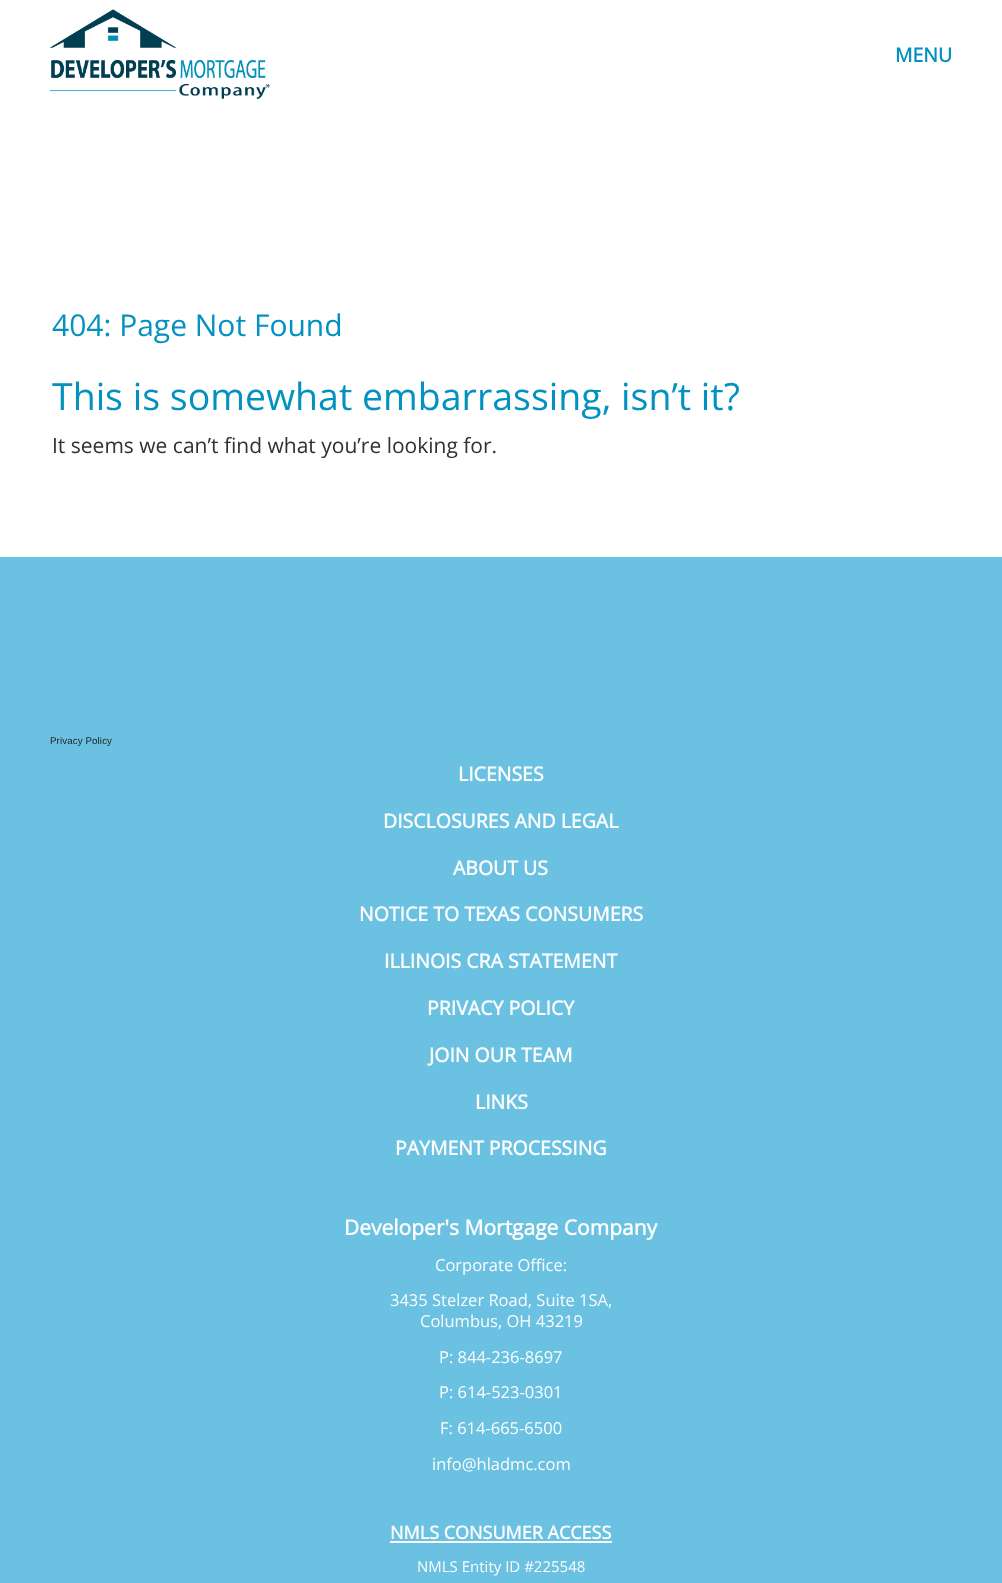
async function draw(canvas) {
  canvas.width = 1002;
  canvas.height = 1583;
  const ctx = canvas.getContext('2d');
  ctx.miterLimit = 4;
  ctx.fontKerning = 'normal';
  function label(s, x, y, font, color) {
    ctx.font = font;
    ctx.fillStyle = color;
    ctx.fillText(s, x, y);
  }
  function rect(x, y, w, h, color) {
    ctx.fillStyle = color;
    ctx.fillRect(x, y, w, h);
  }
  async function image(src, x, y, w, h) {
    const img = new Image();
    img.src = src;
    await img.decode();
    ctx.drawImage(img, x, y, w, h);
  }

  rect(0, 0, 1002, 1583, '#fff');
  await image('assets/img1.png', 49, 9, 221, 90);
  label('MENU', 895, 62, 'bold 19.5px Open Sans', '#0392c0');
  label('404: Page Not Found', 52, 336, '30px Open Sans', '#0392c0');
  label('This is somewhat embarrassing, isn’t it?', 52, 410, '37.5px Open Sans', '#0392c0');
  label('It seems we can’t find what you’re looking for.', 52, 453, '21px Open Sans', '#303135');
  rect(0, 557, 1002, 1026, '#6bc1e1');
  ctx.letterSpacing = '0.1px';
  label('Privacy Policy', 50, 744, '9.75px Liberation Sans', '#231f20');
  ctx.letterSpacing = '0px';
  label('LICENSES', 458, 781, 'bold 19.5px Open Sans', '#fbfdfd');
  label('DISCLOSURES AND LEGAL', 383, 828, 'bold 19.5px Open Sans', '#fbfdfd');
  label('ABOUT US', 453, 875, 'bold 19.5px Open Sans', '#fbfdfd');
  label('NOTICE TO TEXAS CONSUMERS', 359, 921, 'bold 19.5px Open Sans', '#fbfdfd');
  label('ILLINOIS CRA STATEMENT', 384, 968, 'bold 19.5px Open Sans', '#fbfdfd');
  label('PRIVACY POLICY', 427, 1015, 'bold 19.5px Open Sans', '#fbfdfd');
  label('JOIN OUR TEAM', 429, 1062, 'bold 19.5px Open Sans', '#fbfdfd');
  label('LINKS', 475, 1109, 'bold 19.5px Open Sans', '#fbfdfd');
  label('PAYMENT PROCESSING', 395, 1155, 'bold 19.5px Open Sans', '#fbfdfd');
  label('Developer\'s Mortgage Company', 344, 1235, 'bold 21px Open Sans', '#fbfdfd');
  label('Corporate Office:', 435, 1271, '16.5px Open Sans', '#fbfdfd');
  label('3435 Stelzer Road, Suite 1SA,', 390, 1306, '16.5px Open Sans', '#fbfdfd');
  label('Columbus, OH 43219', 420, 1327, '16.5px Open Sans', '#fbfdfd');
  label('P: 844-236-8697', 439, 1363, '16.5px Open Sans', '#fbfdfd');
  label('P: 614-523-0301', 439, 1398, '16.5px Open Sans', '#fbfdfd');
  label('F: 614-665-6500', 440, 1434, '16.5px Open Sans', '#fbfdfd');
  label('info@hladmc.com', 432, 1470, '16.5px Open Sans', '#fbfdfd');
  label('NMLS CONSUMER ACCESS', 390, 1539, 'bold 18px Open Sans', '#fbfdfd');
  rect(390, 1541, 222, 2, '#fbfdfd');
  label('NMLS Entity ID #225548', 417, 1572, '15px Open Sans', '#fbfdfd');
}

draw(document.querySelector('canvas'));
